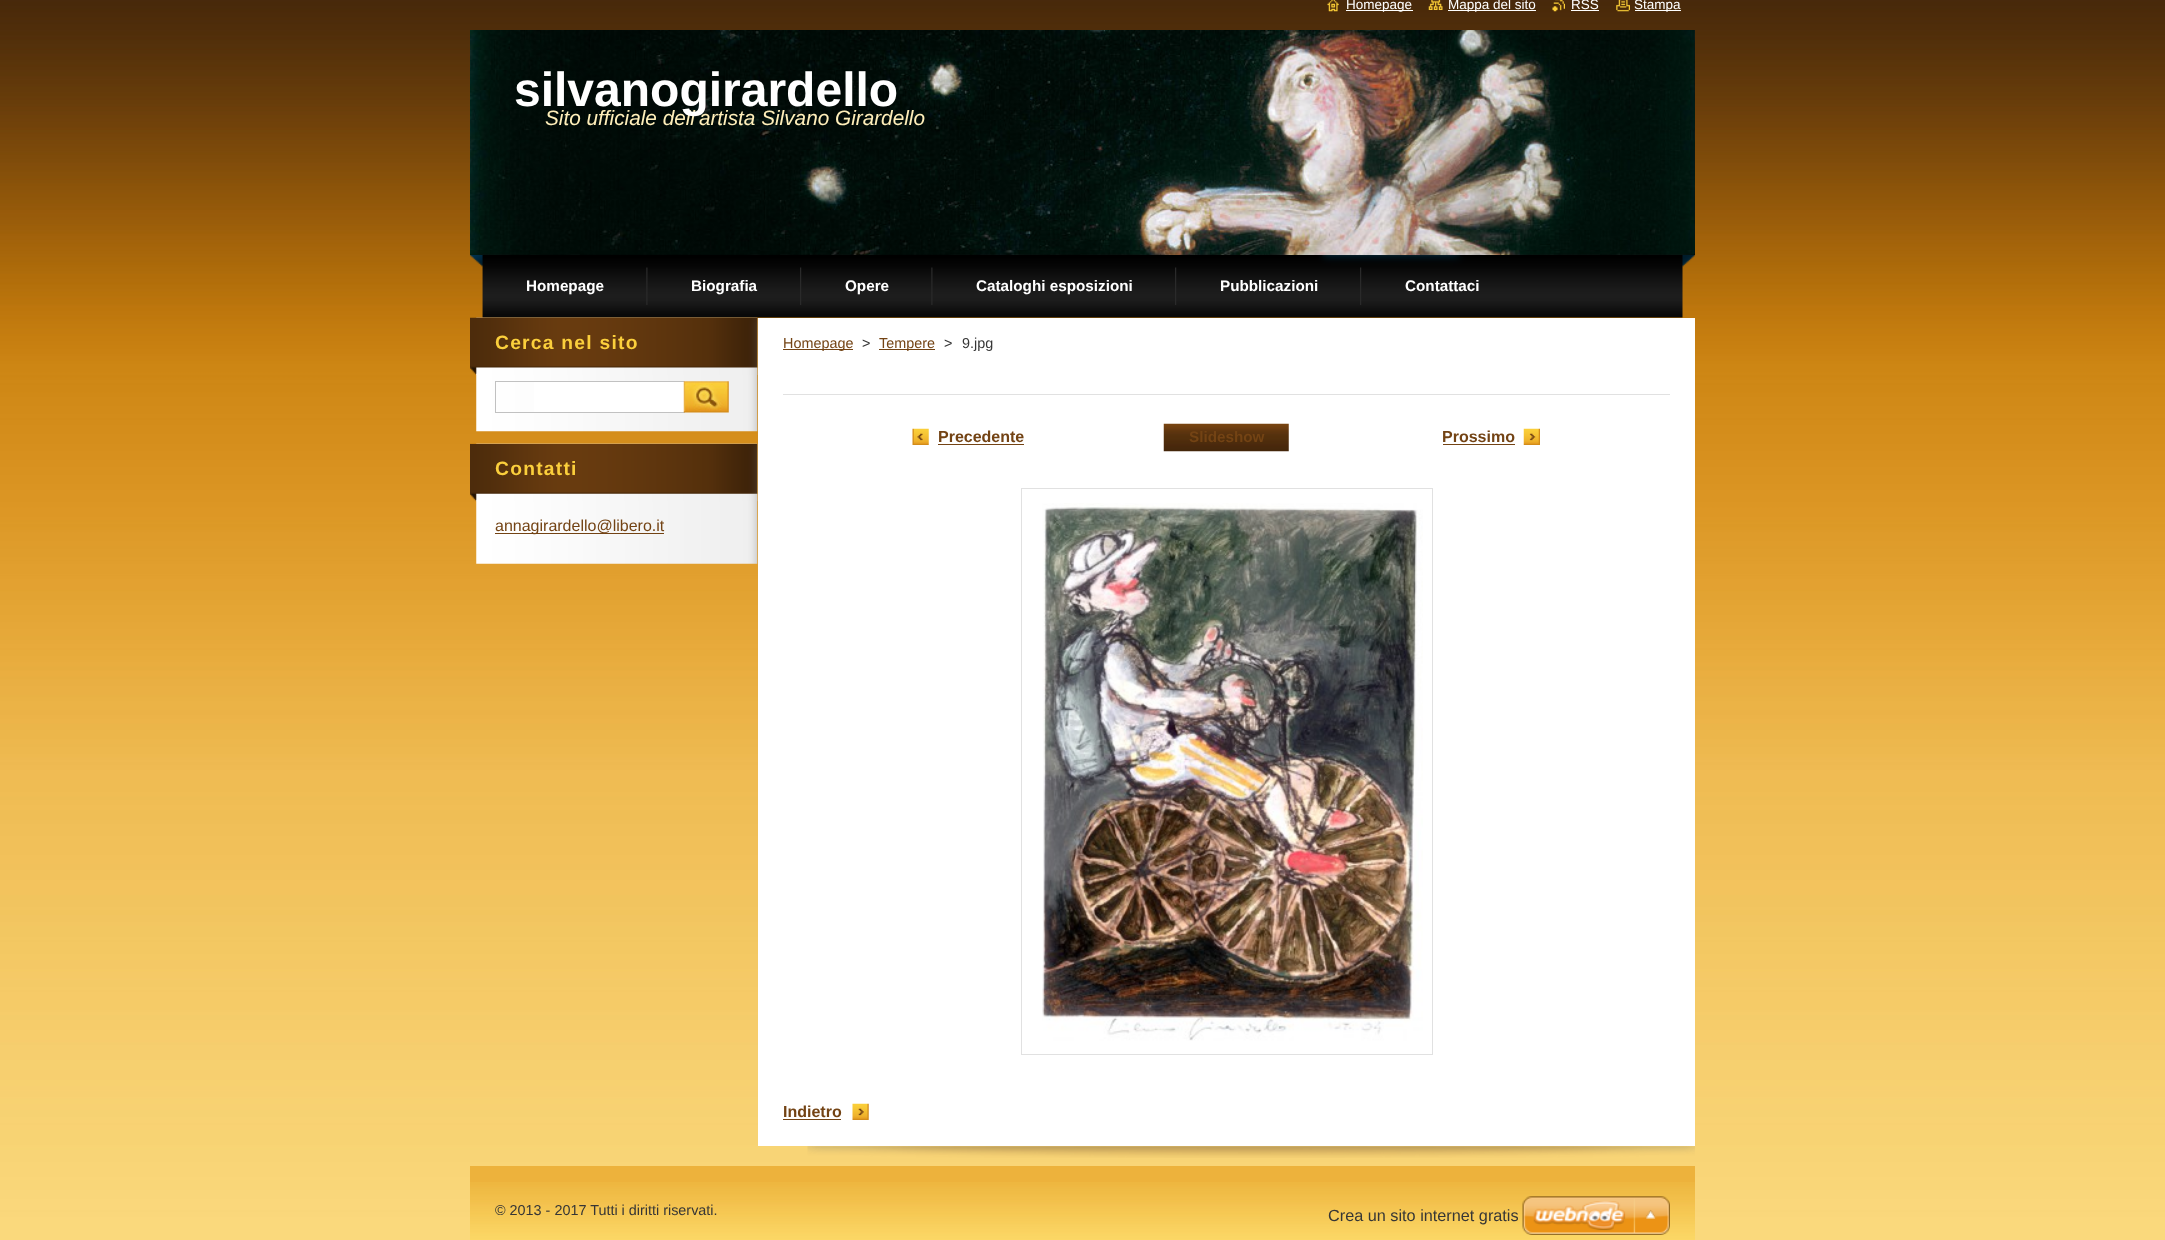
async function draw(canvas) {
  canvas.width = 2165;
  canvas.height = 1240;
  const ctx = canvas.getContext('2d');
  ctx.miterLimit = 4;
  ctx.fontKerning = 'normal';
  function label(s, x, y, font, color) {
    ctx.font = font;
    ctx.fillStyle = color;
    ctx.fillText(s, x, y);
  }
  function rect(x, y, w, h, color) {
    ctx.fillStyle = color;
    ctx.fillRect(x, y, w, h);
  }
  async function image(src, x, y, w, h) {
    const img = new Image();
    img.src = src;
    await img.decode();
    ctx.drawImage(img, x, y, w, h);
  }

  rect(0, 0, 2165, 1240, '#fff');
  await image('assets/img1.png', 0, 0, 2165, 1240);
  await image('assets/img2.png', 1327, 0, 12, 12);
  rect(1346, 10, 67, 1, '#fff');
  label('Homepage', 1346, 9, '13.5px Liberation Sans', '#fff');
  await image('assets/img3.png', 1428, 0, 15, 10);
  rect(1448, 10, 88, 1, '#fff');
  label('Mappa del sito', 1448, 9, '13.5px Liberation Sans', '#fff');
  await image('assets/img4.png', 1552, 0, 13, 12);
  label('RSS', 1571, 9, '13.5px Liberation Sans', '#fff');
  rect(1571, 10, 28, 1, '#fff');
  await image('assets/img5.png', 1616, 0, 14, 12);
  rect(1635, 10, 46, 1, '#fff');
  label('Stampa', 1634, 9, '13.5px Liberation Sans', '#fff');
  await image('assets/img6.png', 470, 30, 1225, 225);
  label('Sito ufficiale dell\'artista Silvano Girardello', 545, 125, 'italic 20.75px Liberation Sans', '#ffefba');
  label('silvanogirardello', 514, 106, 'bold 48px Liberation Sans', '#fff');
  await image('assets/img7.png', 470, 255, 1225, 63);
  await image('assets/img8.png', 646, 267, 2, 38);
  label('Homepage', 526, 291, 'bold 15.25px Liberation Sans', '#fff');
  await image('assets/img9.png', 800, 267, 2, 38);
  label('Biografia', 691, 291, 'bold 15.25px Liberation Sans', '#fff');
  await image('assets/img8.png', 931, 267, 2, 38);
  label('Opere', 845, 291, 'bold 15.25px Liberation Sans', '#fff');
  await image('assets/img9.png', 1175, 267, 2, 38);
  label('Cataloghi esposizioni', 976, 291, 'bold 15.25px Liberation Sans', '#fff');
  await image('assets/img9.png', 1360, 267, 2, 38);
  label('Pubblicazioni', 1220, 291, 'bold 15.25px Liberation Sans', '#fff');
  label('Contattaci', 1405, 291, 'bold 15.25px Liberation Sans', '#fff');
  await image('assets/img10.png', 476, 317, 282, 115);
  await image('assets/img11.png', 470, 317, 288, 58);
  ctx.letterSpacing = '1.25px';
  label('Cerca nel sito', 495, 349, 'bold 19.25px Liberation Sans', '#fbcf3c');
  rect(534, 382, 150, 30, '#fff');
  ctx.strokeStyle = '#c1c1c1';
  ctx.strokeRect(495.5, 381.5, 189, 31);
  await image('assets/img12.png', 683, 381, 46, 32);
  await image('assets/img13.png', 476, 443, 282, 121);
  await image('assets/img14.png', 470, 443, 288, 59);
  label('Contatti', 495, 475, 'bold 19.25px Liberation Sans', '#fbcf3c');
  rect(495, 533, 169, 1, '#734314');
  ctx.letterSpacing = '0px';
  label('annagirardello@libero.it', 495, 531, '16px Liberation Sans', '#734314');
  await image('assets/img15.png', 807, 1146, 888, 12);
  rect(758, 318, 937, 828, '#fff');
  rect(783, 349, 70, 1, '#734314');
  label('Homepage', 783, 348, '14.4px Liberation Sans', '#734314');
  label('>', 862, 348, '14.4px Liberation Sans', '#363636');
  rect(879, 349, 56, 1, '#734314');
  label('Tempere', 879, 348, '14.4px Liberation Sans', '#734314');
  label('>', 944, 348, '14.4px Liberation Sans', '#363636');
  label('9.jpg', 962, 348, '14.4px Liberation Sans', '#363636');
  rect(783, 394, 887, 1, '#e1e1e1');
  await image('assets/img16.png', 912, 428, 17, 17);
  label('Precedente', 938, 442, 'bold 16px Liberation Sans', '#734314');
  rect(938, 444, 86, 1, '#734314');
  await image('assets/img17.png', 1163, 423, 126, 29);
  label('Slideshow', 1189, 442, 'bold 15.25px Liberation Sans', '#734314');
  await image('assets/img18.png', 1523, 428, 17, 17);
  label('Prossimo', 1442, 442, 'bold 16px Liberation Sans', '#734314');
  rect(1443, 444, 72, 1, '#734314');
  ctx.strokeStyle = '#e1e1e1';
  ctx.strokeRect(1021.5, 488.5, 411, 566);
  await image('assets/img19.png', 1042, 503, 381, 538);
  await image('assets/img20.png', 852, 1103, 17, 17);
  label('Indietro', 783, 1117, 'bold 16px Liberation Sans', '#734314');
  rect(783, 1119, 58, 1, '#734314');
  rect(470, 1166, 1225, 16, '#edb23c');
  await image('assets/img21.png', 470, 1182, 1225, 58);
  label('© 2013 - 2017 Tutti i diritti riservati.', 495, 1215, '14.4px Liberation Sans', '#363636');
  label('Crea un sito internet gratis', 1328, 1221, '16.25px Liberation Sans', '#363636');
  await image('assets/img22.png', 1522, 1196, 148, 39);
}

draw(document.querySelector('canvas'));
